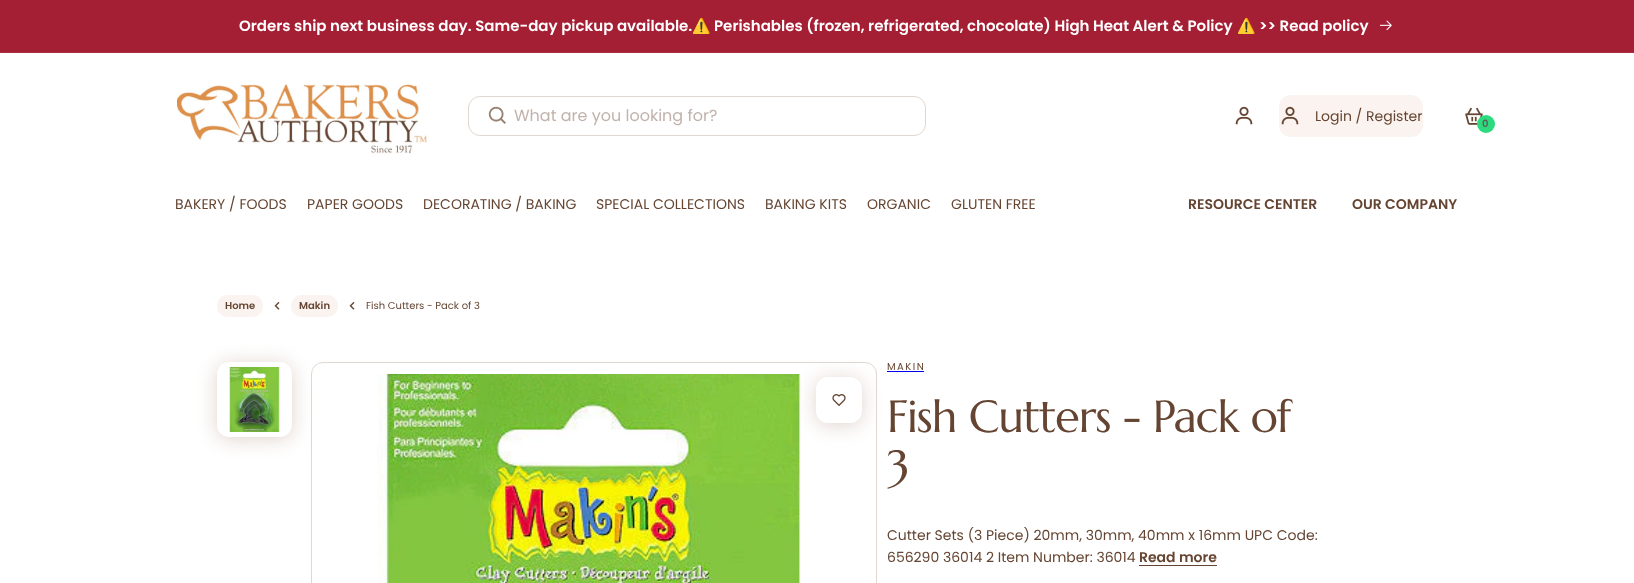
async function draw(canvas) {
  canvas.width = 1634;
  canvas.height = 583;
  const ctx = canvas.getContext('2d');
  ctx.miterLimit = 4;
  ctx.fontKerning = 'normal';
  function label(s, x, y, font, color) {
    ctx.font = font;
    ctx.fillStyle = color;
    ctx.fillText(s, x, y);
  }
  function rect(x, y, w, h, color) {
    ctx.fillStyle = color;
    ctx.fillRect(x, y, w, h);
  }
  function roundedRect(x, y, w, h, r, color) {
    ctx.fillStyle = color;
    ctx.beginPath();
    ctx.roundRect(x, y, w, h, r);
    ctx.fill();
  }
  async function image(src, x, y, w, h) {
    const img = new Image();
    img.src = src;
    await img.decode();
    ctx.drawImage(img, x, y, w, h);
  }
  let path;

  rect(0, 0, 1634, 583, '#fff');
  rect(0, 0, 1634, 52, '#a41e34');
  rect(0, 52, 1634, 1, '#ab3044');
  label('Orders ship next business day. Same-day pickup available.', 239, 31, '600 15px Poppins', '#fff');
  label('⚠️', 692, 31, 'bold 15px Noto Color Emoji', '#fff');
  label('Perishables (frozen, refrigerated, chocolate) High Heat Alert & Policy', 714, 31, '600 15px Poppins', '#fff');
  label('⚠️', 1237, 31, 'bold 15px Noto Color Emoji', '#fff');
  label('>> Read policy', 1259, 31, '600 15px Poppins', '#fff');
  await image('assets/img1.png', 1380, 20, 12, 11);
  await image('assets/img2.png', 177, 84, 250, 70);
  ctx.beginPath();
  ctx.roundRect(468.5, 96.5, 457, 39, 11.5);
  ctx.strokeStyle = '#e1d7d1';
  ctx.stroke();
  await image('assets/img3.png', 488, 106, 18, 18);
  label('What are you looking for?', 514, 121, '16px Poppins', '#c1b3ab');
  await image('assets/img4.png', 1235, 106, 18, 19);
  roundedRect(1279, 95, 144, 42, 12, '#fbf3ef');
  await image('assets/img5.png', 1281, 106, 18, 19);
  label('Login / Register', 1315, 121, '14px Poppins', '#654532');
  await image('assets/img6.png', 1465, 107, 18, 18);
  ctx.fillStyle = '#2dda7d';
  ctx.beginPath();
  ctx.arc(1486, 124, 9, 0, 2 * Math.PI);
  ctx.fill();
  ctx.letterSpacing = '1px';
  label('0', 1482, 127, '600 10px Poppins', '#605d5b');
  ctx.letterSpacing = '0px';
  label('BAKERY / FOODS', 175, 209, '14px Poppins', '#654532');
  label('PAPER GOODS', 307, 209, '14px Poppins', '#654532');
  label('DECORATING / BAKING', 423, 209, '14px Poppins', '#654532');
  label('SPECIAL COLLECTIONS', 596, 209, '14px Poppins', '#654532');
  label('BAKING KITS', 765, 209, '14px Poppins', '#654532');
  label('ORGANIC', 867, 209, '14px Poppins', '#654532');
  label('GLUTEN FREE', 951, 209, '14px Poppins', '#654532');
  label('RESOURCE CENTER', 1188, 209, '600 14px Poppins', '#654532');
  label('OUR COMPANY', 1352, 209, '600 14px Poppins', '#654532');
  roundedRect(217, 295, 46, 22, 11, '#fbf3ef');
  label('Home', 225, 309, '600 10px Poppins', '#654532');
  await image('assets/img7.png', 274, 302, 6, 8);
  roundedRect(291, 295, 47, 22, 11, '#fbf3ef');
  label('Makin', 299, 309, '600 10px Poppins', '#654532');
  await image('assets/img7.png', 349, 302, 6, 8);
  label('Fish Cutters - Pack of 3', 366, 309, '10px Poppins', '#654532');
  ctx.beginPath();
  ctx.roundRect(311.5, 362.5, 565, 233, 11.5);
  ctx.stroke();
  ctx.save();
  path = new Path2D('M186 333H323V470H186ZM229 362H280C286.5 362 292 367.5 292 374V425C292 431.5 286.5 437 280 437H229C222.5 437 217 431.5 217 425V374C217 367.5 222.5 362 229 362Z');
  ctx.clip(path, 'evenodd');
  ctx.fillStyle = '#c9b5a999';
  ctx.filter = 'blur(10px)';
  ctx.beginPath();
  ctx.roundRect(217, 364, 75, 75, 12);
  ctx.fill();
  ctx.filter = 'none';
  ctx.restore();
  await image('assets/img8.png', 228, 367, 53, 65);
  await image('assets/img10.png', 377, 374, 424, 209);
  rect(887, 371, 37, 1, '#00e');
  ctx.fillStyle = '#c9b5a999';
  ctx.filter = 'blur(10px)';
  ctx.beginPath();
  ctx.roundRect(816, 379, 46, 46, 12);
  ctx.fill();
  ctx.filter = 'none';
  roundedRect(816, 377, 46, 46, 12, '#fff');
  await image('assets/img9.png', 832, 394, 14, 12);
  ctx.letterSpacing = '1.5px';
  label('MAKIN', 887, 370, '10px Poppins', '#654532');
  ctx.letterSpacing = '-1px';
  label('Fish Cutters - Pack of', 887, 432, '45px Marcellus', '#654532');
  label('3', 887, 482, '45px Marcellus', '#654532');
  ctx.letterSpacing = '0px';
  label('Cutter Sets (3 Piece) 20mm, 30mm, 40mm x 16mm UPC Code:', 887, 540, '14px Poppins', '#654532');
  label('656290 36014 2 Item Number: 36014', 887, 562, '14px Poppins', '#654532');
  label('Read more', 1139, 562, '600 14px Poppins', '#654532');
  rect(1139, 565, 78, 1, '#654532');
}

draw(document.querySelector('canvas'));
